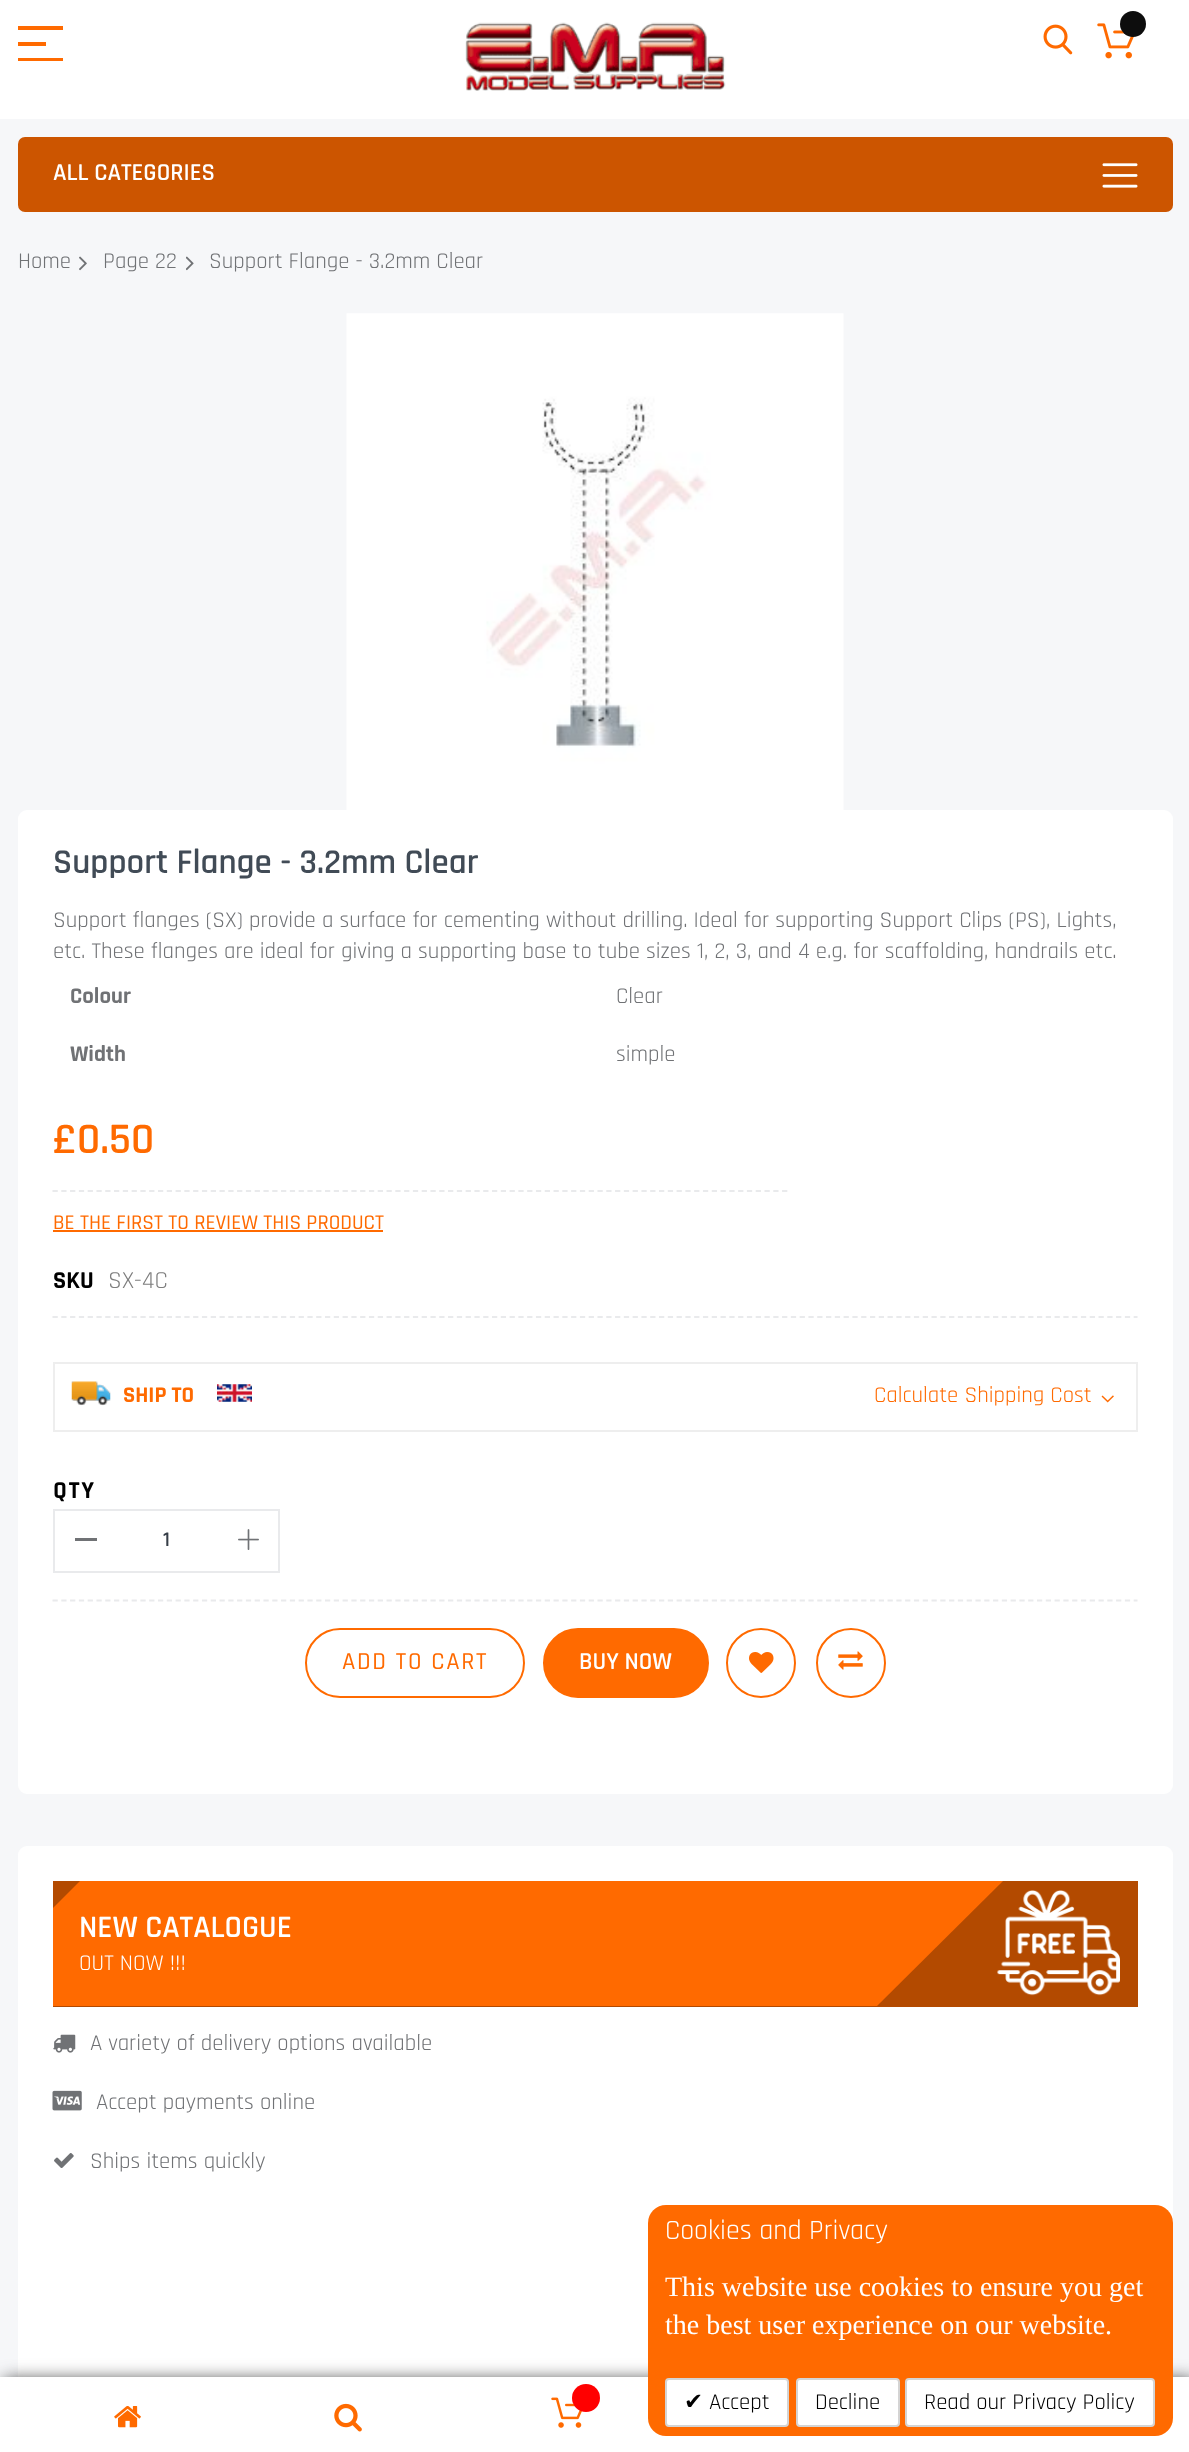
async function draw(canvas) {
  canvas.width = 1189;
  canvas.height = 2452;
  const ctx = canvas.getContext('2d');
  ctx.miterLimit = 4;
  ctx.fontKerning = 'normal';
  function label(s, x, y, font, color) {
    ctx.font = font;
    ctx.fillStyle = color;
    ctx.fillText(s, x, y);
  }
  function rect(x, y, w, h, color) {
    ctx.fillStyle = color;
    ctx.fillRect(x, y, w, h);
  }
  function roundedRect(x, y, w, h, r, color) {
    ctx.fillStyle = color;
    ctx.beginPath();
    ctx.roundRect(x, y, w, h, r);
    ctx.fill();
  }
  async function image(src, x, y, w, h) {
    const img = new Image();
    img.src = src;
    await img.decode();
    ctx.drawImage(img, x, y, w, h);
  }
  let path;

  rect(0, 0, 1189, 2452, '#f6f7f9');
  rect(0, 0, 1189, 119, '#fff');
  rect(18, 26, 45, 4, '#ff6a00');
  rect(18, 58, 45, 3, '#ff6a00');
  rect(18, 42, 28, 4, '#ff6a00');
  await image('assets/img1.png', 465, 22, 261, 69);
  await image('assets/img2.png', 1043, 24, 30, 31);
  await image('assets/img3.png', 1097, 23, 38, 36);
  ctx.fillStyle = '#0d0d0d';
  ctx.beginPath();
  ctx.arc(1133, 24, 13, 0, 2 * Math.PI);
  ctx.fill();
  roundedRect(18, 137, 1155, 75, 7, '#c50');
  label('ALL CATEGORIES', 53, 180, '600 24.5px Rajdhani', '#fff');
  await image('assets/img4.png', 1102, 163, 36, 25);
  label('Home', 18, 268, '22.75px Rajdhani', '#707275');
  await image('assets/img5.png', 79, 256, 8, 15);
  label('Page 22', 103, 268, '22.75px Rajdhani', '#707275');
  await image('assets/img6.png', 186, 256, 8, 15);
  label('Support Flange - 3.2mm Clear', 209, 268, '22.75px Rajdhani', '#707275');
  await image('assets/img7.png', 346, 313, 498, 497);
  roundedRect(18, 810, 1155, 984, 9, '#fff');
  label('Support Flange - 3.2mm Clear', 53, 873, '600 35px Rajdhani', '#414b56');
  label('Support flanges (SX) provide a surface for cementing without drilling. Ideal for supporting Support Clips (PS), Lights,', 53, 927, '22.75px Rajdhani', '#707275');
  label('etc. These flanges are ideal for giving a supporting base to tube sizes 1, 2, 3, and 4 e.g. for scaffolding, handrails etc.', 53, 958, '22.75px Rajdhani', '#707275');
  label('Colour', 70, 1003, 'bold 22.75px Rajdhani', '#707275');
  label('Clear', 616, 1003, '22.75px Rajdhani', '#707275');
  label('Width', 70, 1061, 'bold 22.75px Rajdhani', '#707275');
  label('simple', 616, 1061, '22.75px Rajdhani', '#707275');
  path = new Path2D('M52.5 1191H787.5');
  ctx.strokeStyle = '#e9eaec';
  ctx.lineWidth = 1.8;
  ctx.setLineDash([5.25, 3.54]);
  ctx.stroke(path);
  label('£0.50', 53, 1153, '600 44px Rajdhani', '#ff6a00');
  label('BE THE FIRST TO REVIEW THIS PRODUCT', 53, 1229, '500 21px Rajdhani', '#ff6a00');
  rect(53, 1230, 330, 2, '#ff6a00');
  path = new Path2D('M52.5 1317H1137.5');
  ctx.stroke(path);
  label('SKU', 53, 1288, 'bold 24.5px Rajdhani', '#000');
  label('SX-4C', 108, 1288, '24.5px Rajdhani', '#7d7d7d');
  ctx.strokeStyle = '#eee';
  ctx.lineWidth = 2;
  ctx.setLineDash([]);
  ctx.strokeRect(54, 1363, 1083, 68);
  await image('assets/img8.png', 71, 1381, 40, 25);
  label('SHIP TO', 123, 1402, 'bold 22.75px Rajdhani', '#ff6a00');
  await image('assets/img9.png', 217, 1384, 35, 18);
  label('Calculate Shipping Cost', 874, 1402, '22.75px Rajdhani', '#ff6a00');
  await image('assets/img10.png', 1101, 1395, 13, 8);
  path = new Path2D('M52.5 1600.5H1137.5');
  ctx.strokeStyle = '#e9eaec';
  ctx.lineWidth = 1.8;
  ctx.setLineDash([5.25, 3.54]);
  ctx.stroke(path);
  ctx.letterSpacing = '1.75px';
  label('QTY', 53, 1498, 'bold 24.5px Rajdhani', '#000');
  ctx.lineWidth = 2;
  ctx.setLineDash([]);
  ctx.strokeRect(54, 1510, 225, 62);
  rect(75, 1538, 22, 3, '#707275');
  ctx.letterSpacing = '0px';
  label('1', 163, 1546, '600 21px Rajdhani', '#363e47');
  await image('assets/img11.png', 238, 1529, 21, 21);
  ctx.beginPath();
  ctx.roundRect(306, 1629, 218, 68, 34);
  ctx.strokeStyle = '#ff6a00';
  ctx.stroke();
  ctx.letterSpacing = '1.75px';
  label('ADD TO CART', 342, 1669, '500 24.5px Rajdhani', '#ff6a00');
  ctx.beginPath();
  ctx.roundRect(544, 1629, 164, 68, 34);
  ctx.fill();
  ctx.stroke();
  ctx.letterSpacing = '0px';
  label('BUY NOW', 579, 1669, '600 24.5px Rajdhani', '#fff');
  ctx.beginPath();
  ctx.arc(761, 1663, 34, 0, 2 * Math.PI);
  ctx.stroke();
  await image('assets/img12.png', 749, 1652, 25, 21);
  ctx.beginPath();
  ctx.arc(851, 1663, 34, 0, 2 * Math.PI);
  ctx.stroke();
  await image('assets/img13.png', 838, 1651, 25, 19);
  roundedRect(18, 1846, 1155, 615, 9, '#fff');
  rect(53, 1881, 1085, 126, '#b34a00');
  ctx.save();
  ctx.beginPath();
  ctx.rect(53, 1881, 1085, 126);
  ctx.clip();
  ctx.fillStyle = '#ff6a00';
  path = new Path2D('M80 1881H1003L877 2006H-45Z');
  ctx.fill(path);
  ctx.restore();
  label('NEW CATALOGUE', 79, 1937, '600 31.5px Rajdhani', '#fff');
  await image('assets/img14.png', 997, 1890, 123, 106);
  label('OUT NOW !!!', 79, 1970, '22.75px Rajdhani', '#fff');
  await image('assets/img15.png', 53, 2034, 23, 19);
  label('A variety of delivery options available', 90, 2050, '22.75px Rajdhani', '#707275');
  await image('assets/img16.png', 52, 2090, 30, 21);
  label('Accept payments online', 96, 2109, '22.75px Rajdhani', '#707275');
  await image('assets/img17.png', 54, 2153, 20, 15);
  label('Ships items quickly', 90, 2168, '22.75px Rajdhani', '#707275');
  ctx.fillStyle = '#333';
  ctx.filter = 'blur(9px)';
  ctx.beginPath();
  ctx.rect(4, 2380, 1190, 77);
  ctx.fill();
  ctx.filter = 'none';
  rect(0, 2377, 1189, 75, '#fff');
  roundedRect(648, 2205, 525, 231, 18, '#ff6a00');
  label('Cookies and Privacy', 665, 2239, '28px Rajdhani', '#fff');
  label('This website use cookies to ensure you get', 665, 2296, '28px Liberation Serif', '#fff');
  label('the best user experience on our website.', 665, 2334, '28px Liberation Serif', '#fff');
  ctx.beginPath();
  ctx.roundRect(666, 2379, 122, 47, 3);
  ctx.fill();
  ctx.strokeStyle = '#d4d4d4';
  ctx.stroke();
  label('✔', 684, 2409, '22.75px DejaVu Sans', '#000');
  label('Accept', 709, 2409, '22.75px Rajdhani', '#000');
  ctx.fillStyle = '#fff';
  ctx.beginPath();
  ctx.roundRect(797, 2379, 102, 47, 3);
  ctx.fill();
  ctx.stroke();
  label('Decline', 815, 2409, '22.75px Rajdhani', '#000');
  ctx.fillStyle = '#fff';
  ctx.beginPath();
  ctx.roundRect(906, 2379, 248, 47, 3);
  ctx.fill();
  ctx.stroke();
  label('Read our Privacy Policy', 924, 2409, '22.75px Rajdhani', '#000');
  await image('assets/img18.png', 114, 2406, 27, 22);
  await image('assets/img19.png', 334, 2403, 28, 29);
  await image('assets/img20.png', 551, 2397, 31, 31);
  ctx.fillStyle = '#f00';
  ctx.beginPath();
  ctx.arc(586, 2398, 14, 0, 2 * Math.PI);
  ctx.fill();
}

draw(document.querySelector('canvas'));
